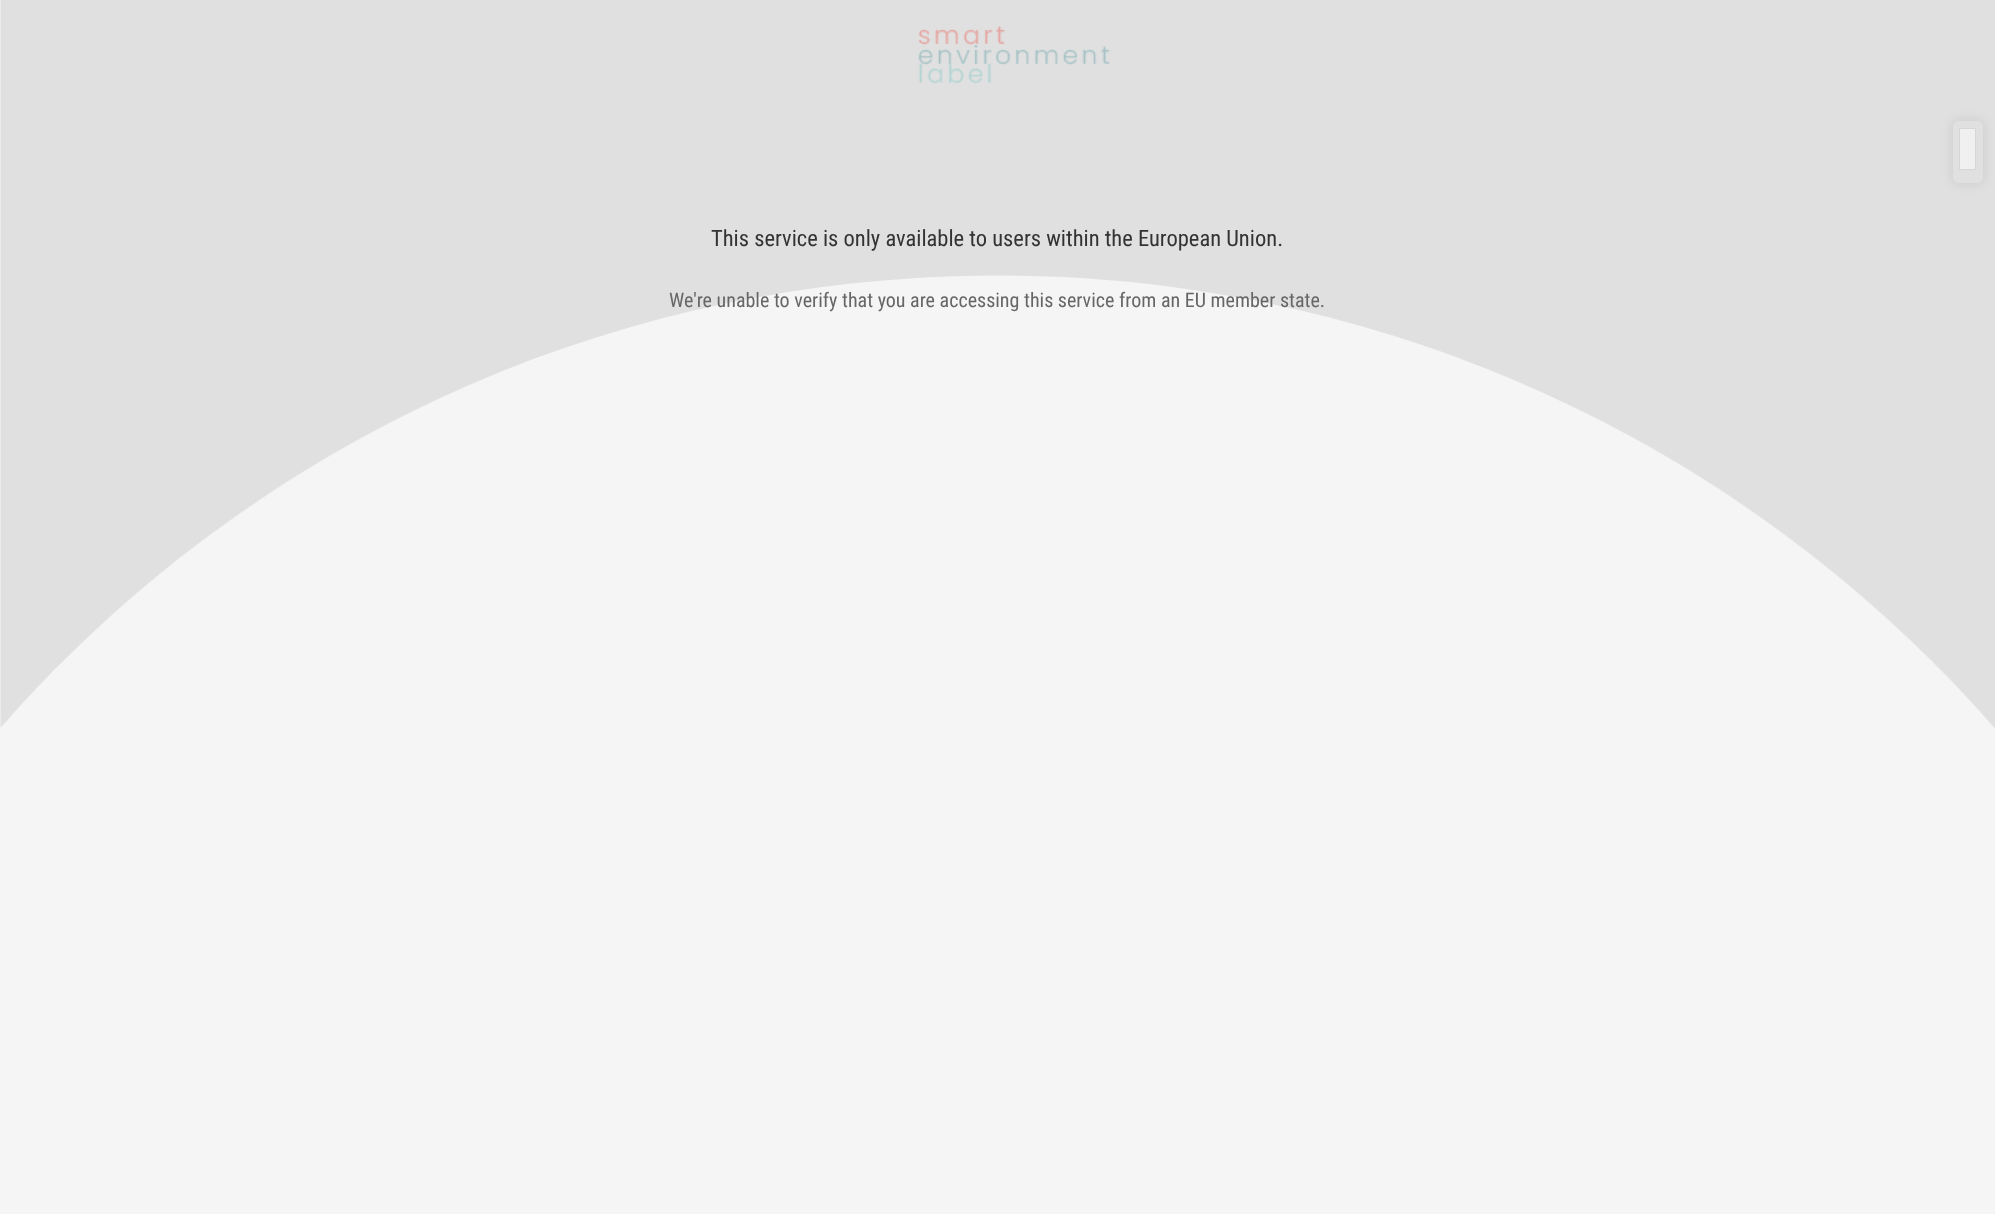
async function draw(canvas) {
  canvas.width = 1995;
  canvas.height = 1214;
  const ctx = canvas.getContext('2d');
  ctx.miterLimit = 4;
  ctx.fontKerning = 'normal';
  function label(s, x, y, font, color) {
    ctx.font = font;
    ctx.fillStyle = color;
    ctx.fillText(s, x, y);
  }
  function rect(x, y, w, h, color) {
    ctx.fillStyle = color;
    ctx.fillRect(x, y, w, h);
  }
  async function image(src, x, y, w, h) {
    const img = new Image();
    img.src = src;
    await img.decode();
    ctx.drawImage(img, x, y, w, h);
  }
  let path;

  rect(0, 0, 1995, 1214, '#f5f5f5');
  await image('assets/img1.png', 0, 0, 1995, 729);
  await image('assets/img2.png', 918, 26, 192, 58);
  ctx.save();
  path = new Path2D('M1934 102H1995V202H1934ZM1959 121H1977C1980.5 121 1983 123.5 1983 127V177C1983 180.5 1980.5 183 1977 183H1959C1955.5 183 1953 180.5 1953 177V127C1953 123.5 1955.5 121 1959 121Z');
  ctx.clip(path, 'evenodd');
  ctx.fillStyle = '#0000001a';
  ctx.filter = 'blur(6px)';
  ctx.beginPath();
  ctx.roundRect(1953, 121, 30, 62, 6);
  ctx.fill();
  ctx.filter = 'none';
  ctx.restore();
  ctx.fillStyle = '#f0f0f0';
  ctx.beginPath();
  ctx.rect(1959.5, 128.5, 16, 41);
  ctx.fill();
  ctx.strokeStyle = '#d6d6d6';
  ctx.stroke();
  label('This service is only available to users within the European Union.', 711, 246, '22.5px Roboto Condensed', '#333');
  label('We\'re unable to verify that you are accessing this service from an EU member state.', 669, 307, '20px Roboto Condensed', '#666');
}

draw(document.querySelector('canvas'));
